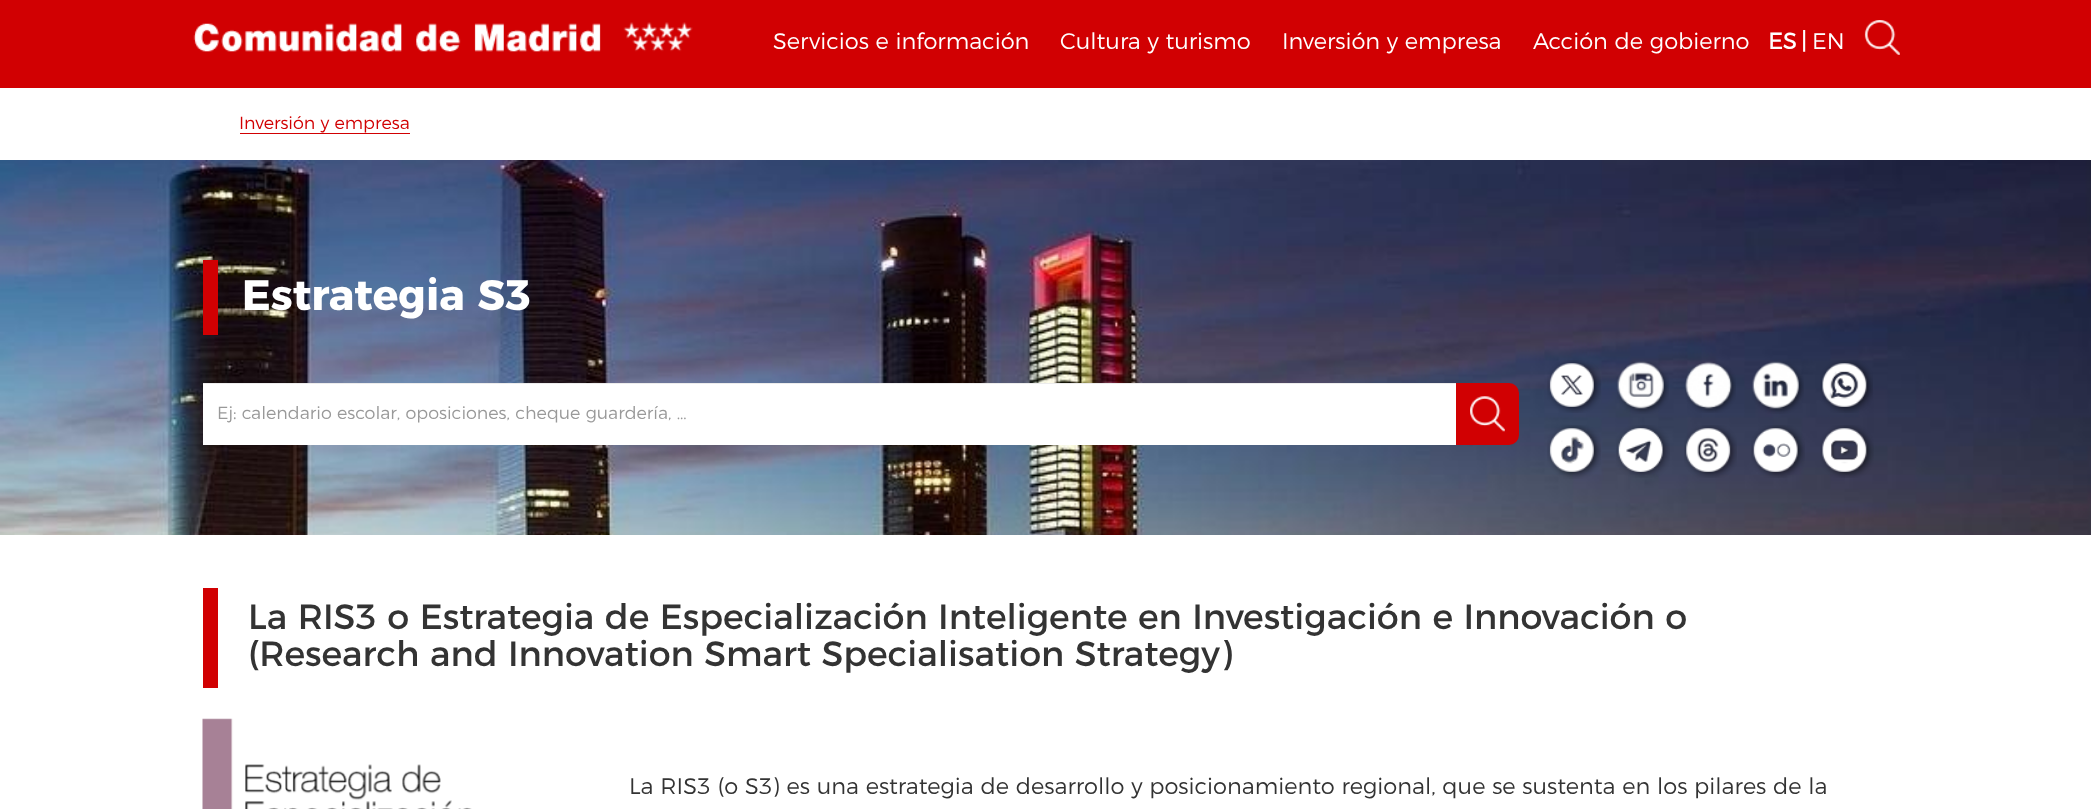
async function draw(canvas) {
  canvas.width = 2091;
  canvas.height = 809;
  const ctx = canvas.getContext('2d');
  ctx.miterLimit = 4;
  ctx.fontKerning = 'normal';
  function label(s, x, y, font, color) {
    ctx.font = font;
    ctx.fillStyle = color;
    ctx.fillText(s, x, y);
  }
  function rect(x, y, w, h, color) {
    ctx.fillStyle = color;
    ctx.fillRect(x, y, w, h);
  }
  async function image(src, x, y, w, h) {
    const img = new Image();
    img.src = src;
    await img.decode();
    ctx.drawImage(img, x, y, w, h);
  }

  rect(0, 0, 2091, 809, '#fff');
  rect(0, 0, 2091, 88, '#d10002');
  await image('assets/img1.png', 193, 22, 500, 30);
  label('Servicios e información', 773, 49, '300 22.5px Montserrat', '#fff');
  label('Cultura y turismo', 1060, 49, '300 22.5px Montserrat', '#fff');
  label('Inversión y empresa', 1282, 49, '300 22.5px Montserrat', '#fff');
  label('Acción de gobierno', 1533, 49, '300 22.5px Montserrat', '#fff');
  label('ES', 1768, 49, 'bold 22.5px "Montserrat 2"', '#fff');
  label('|', 1801, 49, 'bold 22.5px "Montserrat 2"', '#fff');
  label('EN', 1812, 49, '300 22.5px Montserrat', '#fff');
  await image('assets/img2.png', 1864, 20, 36, 35);
  label('Inversión y empresa', 239, 129, '300 17.5px Montserrat', '#d10002');
  rect(240, 133, 170, 1, '#d10002');
  await image('assets/img3.png', 0, 160, 2091, 375);
  rect(203, 260, 15, 75, '#d10002');
  label('Estrategia S3', 242, 310, 'bold 42.5px Montserrat', '#fff');
  rect(203, 384, 1253, 61, '#fff');
  rect(203, 383, 1253, 1, '#ececec');
  label('Ej: calendario escolar, oposiciones, cheque guardería, …', 217, 419, '300 17.5px Montserrat', '#999');
  ctx.fillStyle = '#d10002';
  ctx.beginPath();
  ctx.roundRect(1456, 383, 63, 62, [0, 10, 10, 0]);
  ctx.fill();
  await image('assets/img4.png', 1470, 396, 35, 36);
  await image('assets/img5.png', 1547, 360, 54, 53);
  await image('assets/img6.png', 1617, 361, 52, 53);
  await image('assets/img7.png', 1685, 361, 51, 52);
  await image('assets/img8.png', 1752, 361, 52, 53);
  await image('assets/img9.png', 1820, 360, 53, 53);
  await image('assets/img10.png', 1547, 425, 54, 54);
  await image('assets/img11.png', 1616, 425, 54, 53);
  await image('assets/img12.png', 1684, 425, 53, 53);
  await image('assets/img13.png', 1751, 425, 54, 53);
  await image('assets/img14.png', 1820, 425, 54, 53);
  rect(203, 588, 15, 100, '#d10002');
  label('La RIS3 o Estrategia de Especialización Inteligente en Investigación e Innovación o', 248, 629, '35px Montserrat', '#333');
  label('(Research and Innovation Smart Specialisation Strategy)', 248, 666, '35px Montserrat', '#333');
  await image('assets/img15.png', 202, 718, 270, 91);
  label('La RIS3 (o S3) es una estrategia de desarrollo y posicionamiento regional, que se sustenta en los pilares de la', 629, 794, '300 22.5px Montserrat', '#333');
}

draw(document.querySelector('canvas'));
